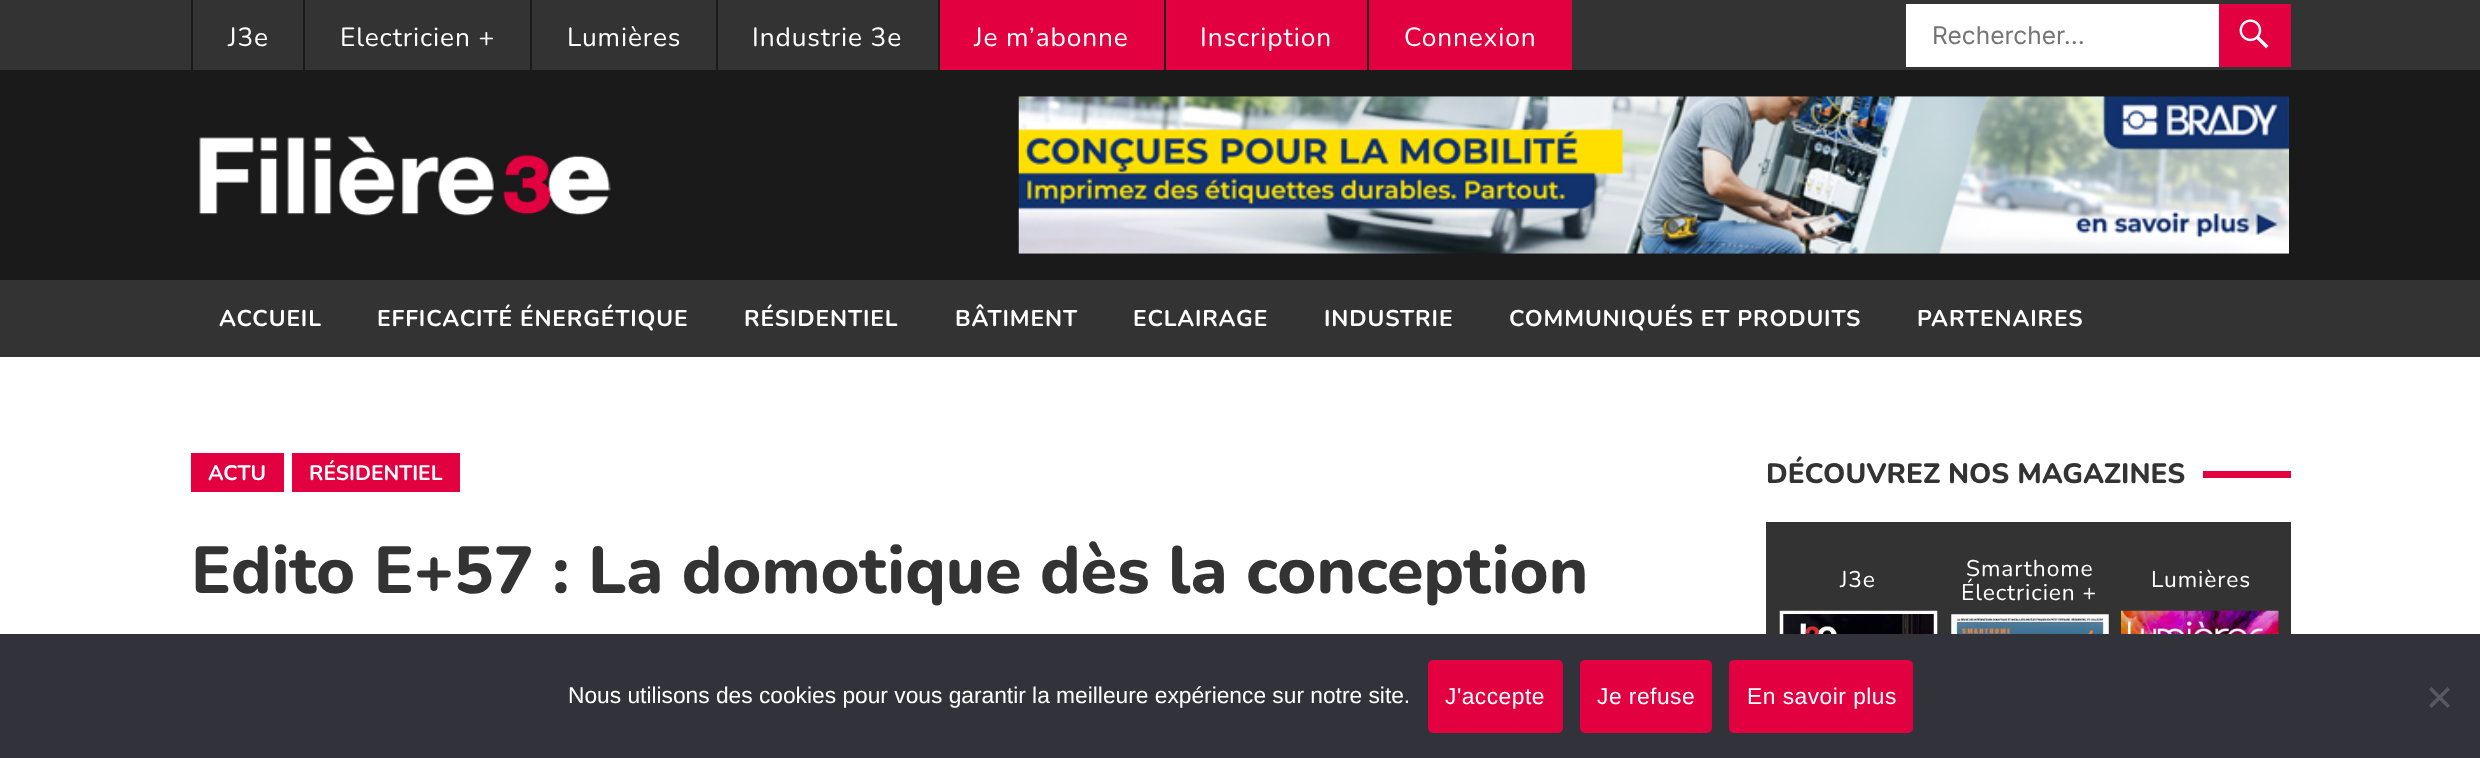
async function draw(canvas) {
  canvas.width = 2480;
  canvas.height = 758;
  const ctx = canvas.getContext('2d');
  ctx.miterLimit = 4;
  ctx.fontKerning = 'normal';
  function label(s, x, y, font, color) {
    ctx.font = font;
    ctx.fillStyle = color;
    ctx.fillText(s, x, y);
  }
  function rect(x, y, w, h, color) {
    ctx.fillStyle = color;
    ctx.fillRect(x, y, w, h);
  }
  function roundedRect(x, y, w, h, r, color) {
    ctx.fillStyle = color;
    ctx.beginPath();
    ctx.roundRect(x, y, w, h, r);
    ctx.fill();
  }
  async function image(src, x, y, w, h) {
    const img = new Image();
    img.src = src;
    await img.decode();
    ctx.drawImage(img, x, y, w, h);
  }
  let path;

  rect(0, 0, 2480, 758, '#fff');
  rect(0, 0, 2480, 70, '#333');
  rect(191, 0, 2, 70, '#1a1a1a');
  ctx.letterSpacing = '0.9px';
  label('J3e', 228, 46, '26.25px Nunito', '#fff');
  rect(303, 0, 2, 70, '#1a1a1a');
  label('Electricien +', 340, 46, '26.25px Nunito', '#fff');
  rect(530, 0, 2, 70, '#1a1a1a');
  label('Lumières', 567, 46, '26.25px Nunito', '#fff');
  rect(716, 0, 2, 70, '#1a1a1a');
  label('Industrie 3e', 752, 46, '26.25px Nunito', '#fff');
  rect(940, 0, 224, 70, '#e20041');
  rect(938, 0, 2, 70, '#1a1a1a');
  label('Je m’abonne', 974, 46, '26.25px Nunito', '#fff');
  rect(1166, 0, 201, 70, '#e20041');
  rect(1164, 0, 2, 70, '#1a1a1a');
  label('Inscription', 1200, 46, '26.25px Nunito', '#fff');
  rect(1369, 0, 203, 70, '#e20041');
  rect(1367, 0, 2, 70, '#1a1a1a');
  label('Connexion', 1404, 46, '26.25px Nunito', '#fff');
  rect(1906, 4, 313, 63, '#fff');
  ctx.letterSpacing = '0px';
  label('Rechercher...', 1932, 44, '24.5px Inter', '#757575');
  rect(2219, 4, 72, 63, '#e20041');
  await image('assets/img1.png', 2239, 19, 30, 30);
  rect(0, 70, 2480, 210, '#1a1a1a');
  await image('assets/img2.png', 199, 136, 412, 80);
  await image('assets/img3.png', 1018, 96, 1271, 158);
  rect(0, 280, 2480, 77, '#333');
  ctx.letterSpacing = '0.9px';
  label('ACCUEIL', 219, 326, 'bold 22.75px Nunito', '#fff');
  label('EFFICACITÉ ÉNERGÉTIQUE', 377, 326, 'bold 22.75px Nunito', '#fff');
  label('RÉSIDENTIEL', 744, 326, 'bold 22.75px Nunito', '#fff');
  label('BÂTIMENT', 955, 326, 'bold 22.75px Nunito', '#fff');
  label('ECLAIRAGE', 1133, 326, 'bold 22.75px Nunito', '#fff');
  label('INDUSTRIE', 1324, 326, 'bold 22.75px Nunito', '#fff');
  label('COMMUNIQUÉS ET PRODUITS', 1509, 326, 'bold 22.75px Nunito', '#fff');
  label('PARTENAIRES', 1917, 326, 'bold 22.75px Nunito', '#fff');
  rect(191, 453, 93, 39, '#e20041');
  ctx.letterSpacing = '0px';
  label('ACTU', 208, 480, 'bold 21px Nunito', '#fff');
  rect(292, 453, 168, 39, '#e20041');
  label('RÉSIDENTIEL', 309, 480, 'bold 21px Nunito', '#fff');
  label('Edito E+57 : La domotique dès la conception', 191, 593, '800 66.5px Nunito', '#333');
  label('DÉCOUVREZ NOS MAGAZINES', 1766, 483, '800 28px Nunito', '#333');
  rect(2203, 471, 88, 7, '#e20041');
  rect(1766, 522, 525, 112, '#333');
  ctx.letterSpacing = '0.9px';
  label('J3e', 1840, 587, '22.75px Nunito', '#fff');
  await image('assets/img4.png', 1779, 610, 159, 24);
  label('Smarthome', 1966, 576, '22.75px Nunito', '#fff');
  label('Électricien +', 1961, 600, '22.75px Nunito', '#fff');
  await image('assets/img5.png', 1951, 614, 158, 20);
  label('Lumières', 2151, 587, '22.75px Nunito', '#fff');
  await image('assets/img6.png', 2121, 610, 158, 24);
  rect(0, 634, 2480, 124, '#32323a');
  ctx.letterSpacing = '0px';
  label('Nous utilisons des cookies pour vous garantir la meilleure expérience sur notre site.', 568, 703, '22.75px Liberation Sans', '#fff');
  roundedRect(1428, 660, 135, 73, 5, '#e20041');
  ctx.letterSpacing = '0.5px';
  label('J\'accepte', 1445, 704, '22.75px Liberation Sans', '#fff');
  roundedRect(1580, 660, 132, 73, 5, '#e20041');
  label('Je refuse', 1597, 704, '22.75px Liberation Sans', '#fff');
  roundedRect(1729, 660, 184, 73, 5, '#e20041');
  label('En savoir plus', 1747, 704, '22.75px Liberation Sans', '#fff');
  ctx.fillStyle = '#59595d';
  path = new Path2D('M2447.5 687L2450 689.5L2431.5 708L2429 705.5Z');
  ctx.fill(path);
  path = new Path2D('M2429 689.5L2431.5 687L2450 705.5L2447.5 708Z');
  ctx.fill(path);
}

draw(document.querySelector('canvas'));
